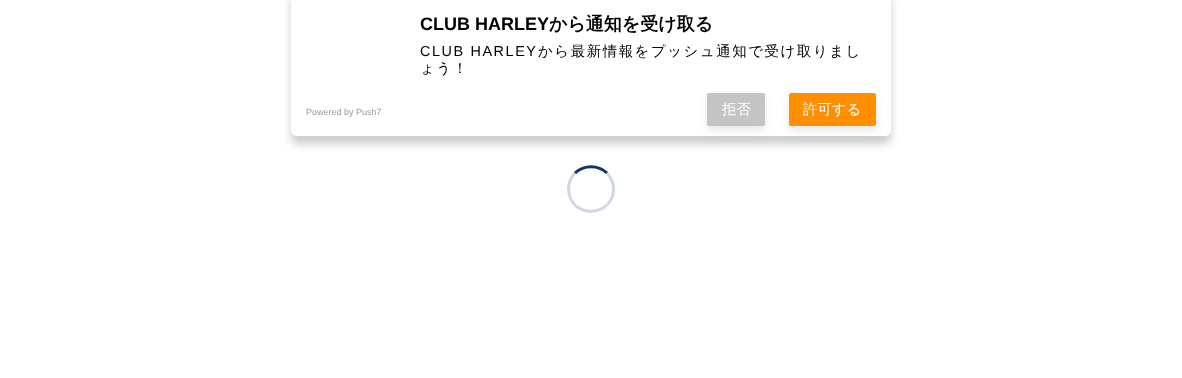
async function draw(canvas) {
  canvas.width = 1182;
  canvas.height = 378;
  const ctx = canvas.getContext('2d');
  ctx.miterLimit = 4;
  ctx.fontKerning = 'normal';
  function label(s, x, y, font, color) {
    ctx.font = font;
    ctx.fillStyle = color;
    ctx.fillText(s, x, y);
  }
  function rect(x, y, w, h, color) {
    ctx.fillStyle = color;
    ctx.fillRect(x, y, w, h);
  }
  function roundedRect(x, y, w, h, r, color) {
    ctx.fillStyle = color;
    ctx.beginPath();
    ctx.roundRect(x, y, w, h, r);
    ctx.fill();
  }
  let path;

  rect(0, 0, 1182, 378, '#fff');
  ctx.fillStyle = '#00000033';
  ctx.filter = 'blur(4px)';
  ctx.beginPath();
  ctx.roundRect(291, -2, 600, 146, 6);
  ctx.fill();
  ctx.filter = 'none';
  ctx.fillStyle = '#fff';
  path = new Path2D('M291-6H891V130C891 133.5 888.5 136 885 136H297C293.5 136 291 133.5 291 130Z');
  ctx.fill(path);
  label('CLUB HARLEY', 420, 30, 'bold 18px Liberation Sans', '#000');
  label('から通知を受け取る', 549, 30, 'bold 18px WenQuanYi Zen Hei', '#000');
  ctx.letterSpacing = '1.6px';
  label('CLUB HARLEY', 420, 56, '14.4px Liberation Sans', '#000');
  label('から最新情報をプッシュ通知で受け取りまし', 538, 56, '500 14.4px WenQuanYi Zen Hei', '#000');
  label('ょう！', 420, 73, '500 14.4px WenQuanYi Zen Hei', '#000');
  ctx.letterSpacing = '0px';
  label('Powered by Push7', 306, 115, '9px Liberation Sans', '#999');
  ctx.fillStyle = '#0000001a';
  ctx.filter = 'blur(4px)';
  ctx.beginPath();
  ctx.roundRect(707, 97, 58, 33, 2);
  ctx.fill();
  ctx.filter = 'none';
  roundedRect(707, 93, 58, 33, 2, '#c4c4c4');
  label('拒否', 722, 114, '500 14.4px WenQuanYi Zen Hei', '#fff');
  ctx.fillStyle = '#0000001a';
  ctx.filter = 'blur(4px)';
  ctx.beginPath();
  ctx.roundRect(789, 97, 87, 33, 2);
  ctx.fill();
  ctx.filter = 'none';
  roundedRect(789, 93, 87, 33, 2, '#ff8e00');
  label('許可する', 803, 114, '500 14.4px WenQuanYi Zen Hei', '#fff');
  path = new Path2D('M575 173C584 164.5 598 164.5 607 173');
  ctx.strokeStyle = '#0f3571';
  ctx.lineWidth = 3;
  ctx.stroke(path);
  path = new Path2D('M607 173C611 177.5 613.5 183 613.5 189C613.5 216 574 219.5 569 193.5C567.5 186 570 178.5 575 173');
  ctx.strokeStyle = '#0f357133';
  ctx.stroke(path);
}

draw(document.querySelector('canvas'));
